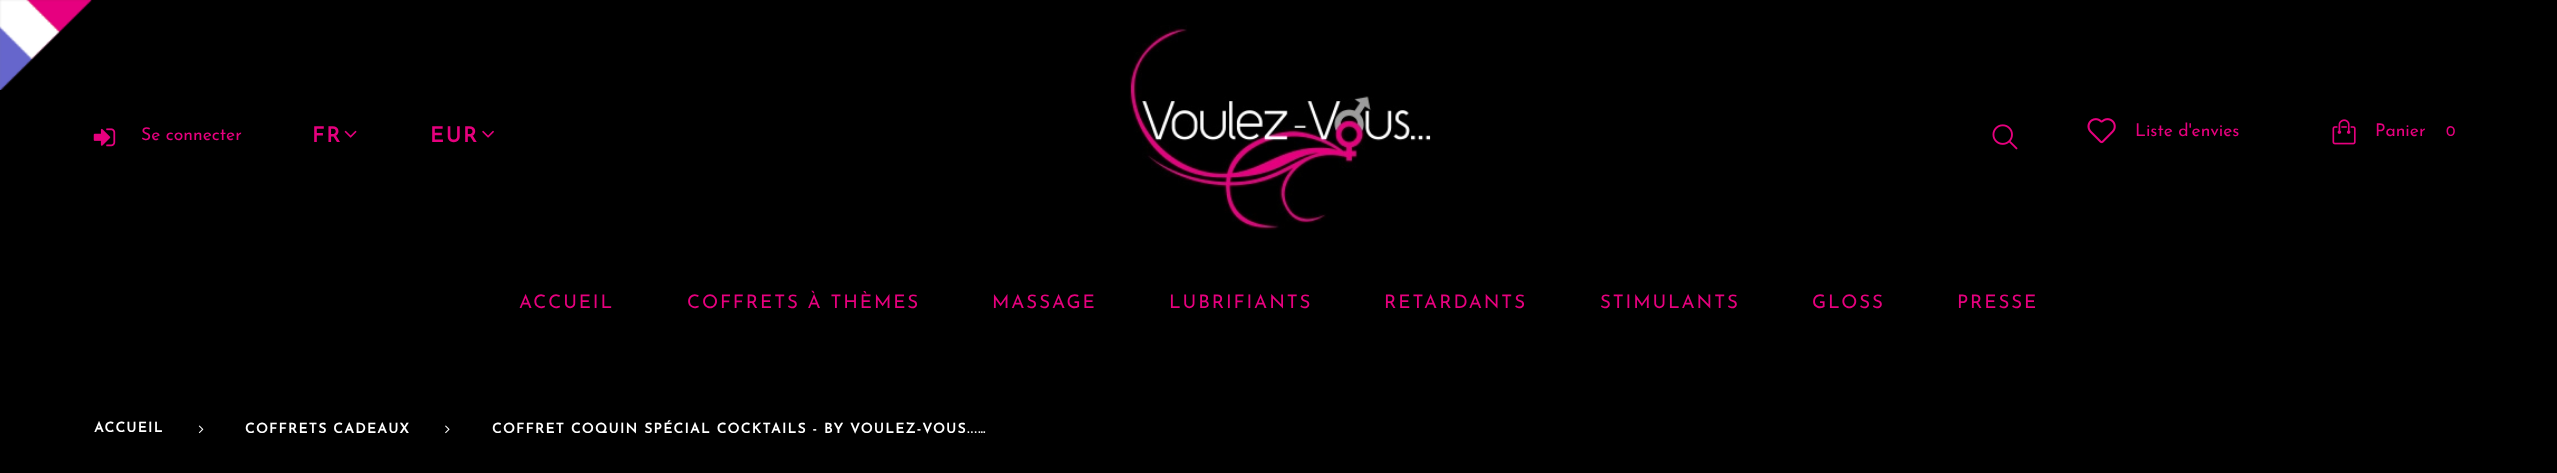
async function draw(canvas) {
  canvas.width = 2557;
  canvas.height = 473;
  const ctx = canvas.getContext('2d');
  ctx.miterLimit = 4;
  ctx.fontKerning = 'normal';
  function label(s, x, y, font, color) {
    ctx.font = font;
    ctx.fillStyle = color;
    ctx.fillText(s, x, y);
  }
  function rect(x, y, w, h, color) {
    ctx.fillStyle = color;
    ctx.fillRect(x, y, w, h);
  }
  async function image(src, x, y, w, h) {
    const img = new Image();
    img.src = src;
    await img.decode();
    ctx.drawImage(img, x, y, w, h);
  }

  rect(0, 0, 2557, 473, '#000');
  await image('assets/img1.png', 0, 0, 92, 90);
  await image('assets/img2.png', 93, 128, 23, 19);
  label('Se connecter', 141, 140, '100 17.5px Josefin Sans', '#e6007e');
  ctx.letterSpacing = '2px';
  label('FR', 312, 142, 'bold 21px Josefin Sans', '#e6007e');
  await image('assets/img3.png', 344, 130, 13, 8);
  label('EUR', 430, 142, 'bold 21px Josefin Sans', '#e6007e');
  await image('assets/img4.png', 482, 130, 12, 8);
  await image('assets/img5.png', 1129, 25, 302, 205);
  await image('assets/img6.png', 1992, 124, 26, 26);
  await image('assets/img7.png', 2087, 118, 29, 26);
  ctx.letterSpacing = '0px';
  label('Liste d\'envies', 2135, 136, '100 17.5px Josefin Sans', '#e6007e');
  await image('assets/img8.png', 2332, 119, 24, 26);
  label('Panier', 2375, 136, '100 17.5px Josefin Sans', '#e6007e');
  label('0', 2446, 136, '100 15px Josefin Sans', '#e6007e');
  ctx.letterSpacing = '1.9px';
  label('ACCUEIL', 519, 308, '100 18.75px Josefin Sans', '#e6007e');
  label('COFFRETS À THÈMES', 687, 308, '100 18.75px Josefin Sans', '#e6007e');
  label('MASSAGE', 992, 308, '100 18.75px Josefin Sans', '#e6007e');
  label('LUBRIFIANTS', 1169, 308, '100 18.75px Josefin Sans', '#e6007e');
  label('RETARDANTS', 1384, 308, '100 18.75px Josefin Sans', '#e6007e');
  label('STIMULANTS', 1600, 308, '100 18.75px Josefin Sans', '#e6007e');
  label('GLOSS', 1812, 308, '100 18.75px Josefin Sans', '#e6007e');
  label('PRESSE', 1957, 308, '100 18.75px Josefin Sans', '#e6007e');
  ctx.letterSpacing = '1.38px';
  label('ACCUEIL', 94, 432, 'bold 13.75px Josefin Sans', '#fff');
  await image('assets/img9.png', 198, 425, 6, 9);
  label('COFFRETS CADEAUX', 245, 433, 'bold 13.75px Josefin Sans', '#fff');
  await image('assets/img10.png', 445, 425, 5, 9);
  label('COFFRET COQUIN SPÉCIAL COCKTAILS - BY VOULEZ-VOUS...…', 492, 433, 'bold 13.75px Josefin Sans', '#fff');
}

draw(document.querySelector('canvas'));
